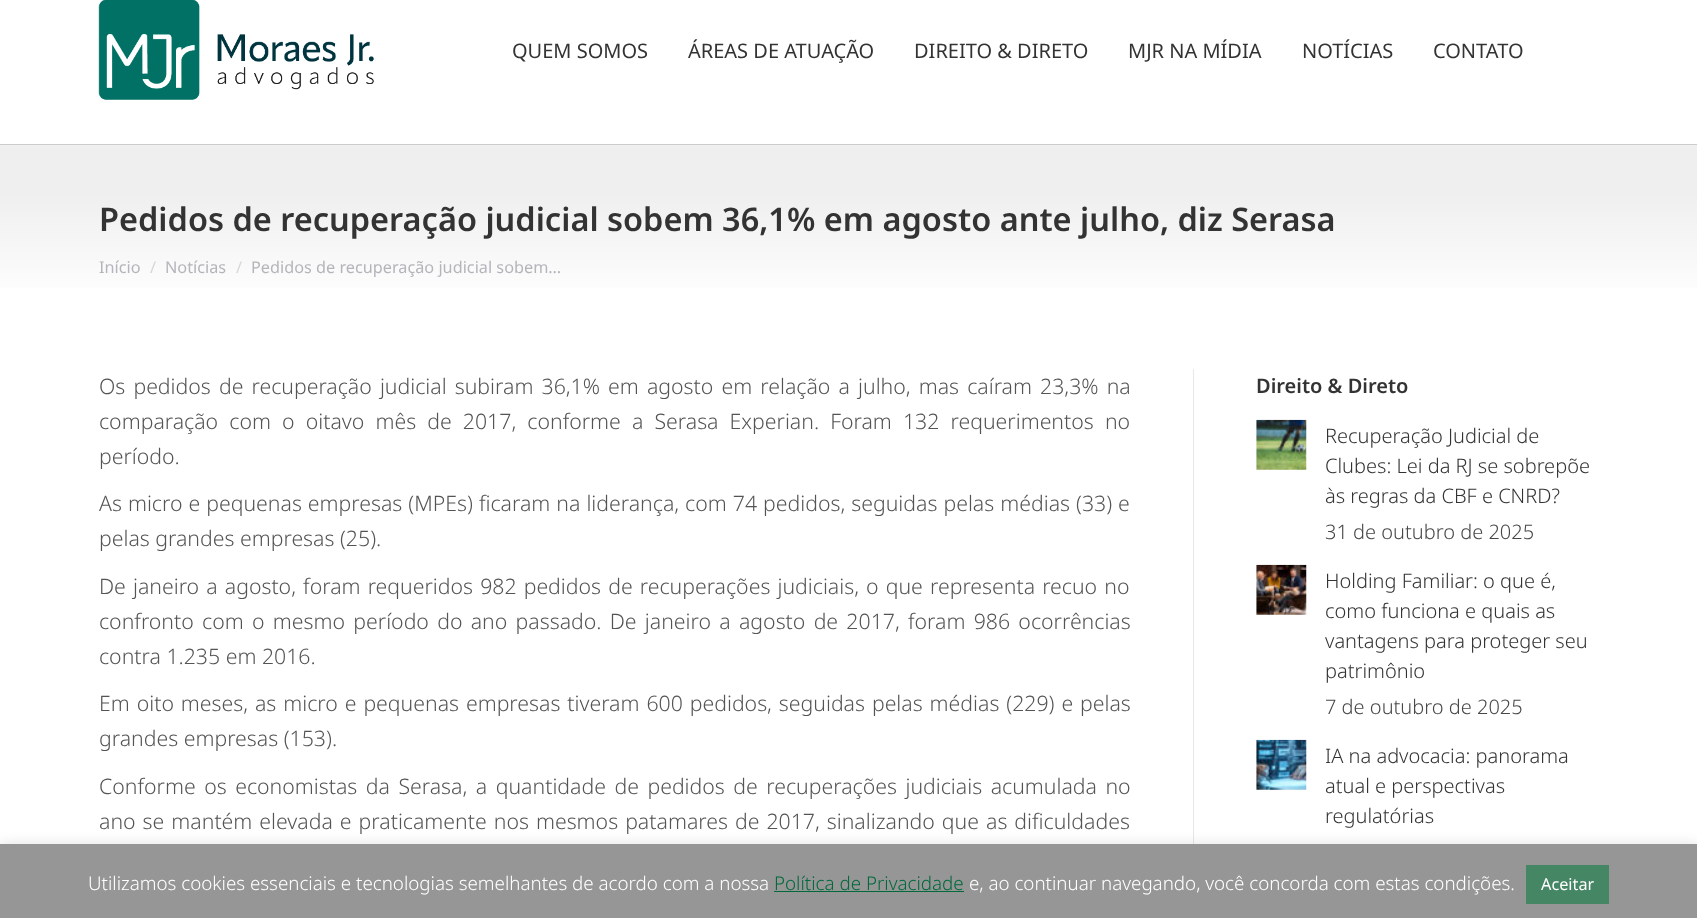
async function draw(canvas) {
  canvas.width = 1697;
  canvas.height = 918;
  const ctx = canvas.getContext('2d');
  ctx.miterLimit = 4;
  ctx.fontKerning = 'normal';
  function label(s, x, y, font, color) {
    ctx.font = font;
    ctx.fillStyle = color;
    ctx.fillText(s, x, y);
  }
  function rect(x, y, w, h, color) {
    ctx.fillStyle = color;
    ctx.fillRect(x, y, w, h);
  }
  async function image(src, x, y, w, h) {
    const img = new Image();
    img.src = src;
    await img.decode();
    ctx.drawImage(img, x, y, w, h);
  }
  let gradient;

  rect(0, 0, 1697, 918, '#fff');
  rect(0, 144, 1697, 1, '#ccc');
  await image('assets/img1.png', 98, 0, 276, 100);
  label('QUEM SOMOS', 512, 58, '20px Noto Sans', '#333');
  label('ÁREAS DE ATUAÇÃO', 688, 58, '20px Noto Sans', '#333');
  label('DIREITO & DIRETO', 914, 58, '20px Noto Sans', '#333');
  label('MJR NA MÍDIA', 1128, 58, '20px Noto Sans', '#333');
  label('NOTÍCIAS', 1302, 58, '20px Noto Sans', '#333');
  label('CONTATO', 1433, 58, '20px Noto Sans', '#333');
  gradient = ctx.createLinearGradient(849, 145, 849, 306);
  gradient.addColorStop(0.3, '#efefef');
  gradient.addColorStop(1, '#fff');
  ctx.fillStyle = gradient;
  ctx.fillRect(0, 145, 1697, 143);
  label('Pedidos de recuperação judicial sobem 36,1% em agosto ante julho, diz Serasa', 99, 231, '600 32.5px Noto Sans', '#333');
  label('Início', 99, 273, '16.25px Noto Sans', '#b4b5bb');
  label('/', 150, 273, '16.25px Noto Sans', '#d7d7da');
  label('Notícias', 165, 273, '16.25px Noto Sans', '#b4b5bb');
  label('/', 236, 273, '16.25px Noto Sans', '#d7d7da');
  label('Pedidos de recuperação judicial sobem…', 251, 273, '16.25px Noto Sans', '#b4b5bb');
  ctx.wordSpacing = '2.6px';
  label('Os pedidos de recuperação judicial subiram 36,1% em agosto em relação a julho, mas caíram 23,3% na', 99, 394, '300 21.25px Noto Sans', '#545454');
  ctx.wordSpacing = '5.6px';
  label('comparação com o oitavo mês de 2017, conforme a Serasa Experian. Foram 132 requerimentos no', 99, 429, '300 21.25px Noto Sans', '#545454');
  ctx.wordSpacing = '0px';
  label('período.', 99, 464, '300 21.25px Noto Sans', '#545454');
  ctx.wordSpacing = '0.5px';
  label('As micro e pequenas empresas (MPEs) ficaram na liderança, com 74 pedidos, seguidas pelas médias (33) e', 99, 511, '300 21.25px Noto Sans', '#545454');
  ctx.wordSpacing = '0px';
  label('pelas grandes empresas (25).', 99, 546, '300 21.25px Noto Sans', '#545454');
  ctx.wordSpacing = '1.6px';
  label('De janeiro a agosto, foram requeridos 982 pedidos de recuperações judiciais, o que representa recuo no', 99, 594, '300 21.25px Noto Sans', '#545454');
  ctx.wordSpacing = '2.75px';
  label('confronto com o mesmo período do ano passado. De janeiro a agosto de 2017, foram 986 ocorrências', 99, 629, '300 21.25px Noto Sans', '#545454');
  ctx.wordSpacing = '0px';
  label('contra 1.235 em 2016.', 99, 664, '300 21.25px Noto Sans', '#545454');
  ctx.wordSpacing = '1.4px';
  label('Em oito meses, as micro e pequenas empresas tiveram 600 pedidos, seguidas pelas médias (229) e pelas', 99, 711, '300 21.25px Noto Sans', '#545454');
  ctx.wordSpacing = '0px';
  label('grandes empresas (153).', 99, 746, '300 21.25px Noto Sans', '#545454');
  ctx.wordSpacing = '3px';
  label('Conforme os economistas da Serasa, a quantidade de pedidos de recuperações judiciais acumulada no', 99, 794, '300 21.25px Noto Sans', '#545454');
  ctx.wordSpacing = '1.5px';
  label('ano se mantém elevada e praticamente nos mesmos patamares de 2017, sinalizando que as dificuldades', 99, 829, '300 21.25px Noto Sans', '#545454');
  rect(1193, 369, 1, 475, '#e7e7e7');
  ctx.wordSpacing = '0px';
  label('Direito & Direto', 1256, 393, '600 20px Noto Sans', '#333');
  await image('assets/img2.png', 1256, 419, 51, 51);
  label('Recuperação Judicial de', 1325, 443, '300 20px Noto Sans', '#333');
  label('Clubes: Lei da RJ se sobrepõe', 1325, 473, '300 20px Noto Sans', '#333');
  label('às regras da CBF e CNRD?', 1325, 503, '300 20px Noto Sans', '#333');
  label('31 de outubro de 2025', 1325, 539, '300 20px Noto Sans', '#474747');
  await image('assets/img3.png', 1256, 564, 51, 51);
  label('Holding Familiar: o que é,', 1325, 588, '300 20px Noto Sans', '#333');
  label('como funciona e quais as', 1325, 618, '300 20px Noto Sans', '#333');
  label('vantagens para proteger seu', 1325, 648, '300 20px Noto Sans', '#333');
  label('patrimônio', 1325, 678, '300 20px Noto Sans', '#333');
  label('7 de outubro de 2025', 1325, 714, '300 20px Noto Sans', '#474747');
  await image('assets/img4.png', 1256, 739, 51, 51);
  label('IA na advocacia: panorama', 1325, 763, '300 20px Noto Sans', '#333');
  label('atual e perspectivas', 1325, 793, '300 20px Noto Sans', '#333');
  label('regulatórias', 1325, 823, '300 20px Noto Sans', '#333');
  ctx.fillStyle = '#acabab4d';
  ctx.filter = 'blur(6px)';
  ctx.beginPath();
  ctx.rect(0, 843, 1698, 75);
  ctx.fill();
  ctx.filter = 'none';
  rect(0, 844, 1697, 74, '#969696');
  label('Utilizamos cookies essenciais e tecnologias semelhantes de acordo com a nossa', 88, 890, '300 18.75px Noto Sans', '#fff');
  label('Política de Privacidade', 774, 890, '300 18.75px Noto Sans', '#00693c');
  rect(774, 891, 190, 1, '#00693c');
  label('e, ao continuar navegando, você concorda com estas condições.', 969, 890, '300 18.75px Noto Sans', '#fff');
  rect(1526, 865, 83, 39, '#458665');
  label('Aceitar', 1541, 890, '16.25px Noto Sans', '#fff');
}

draw(document.querySelector('canvas'));
